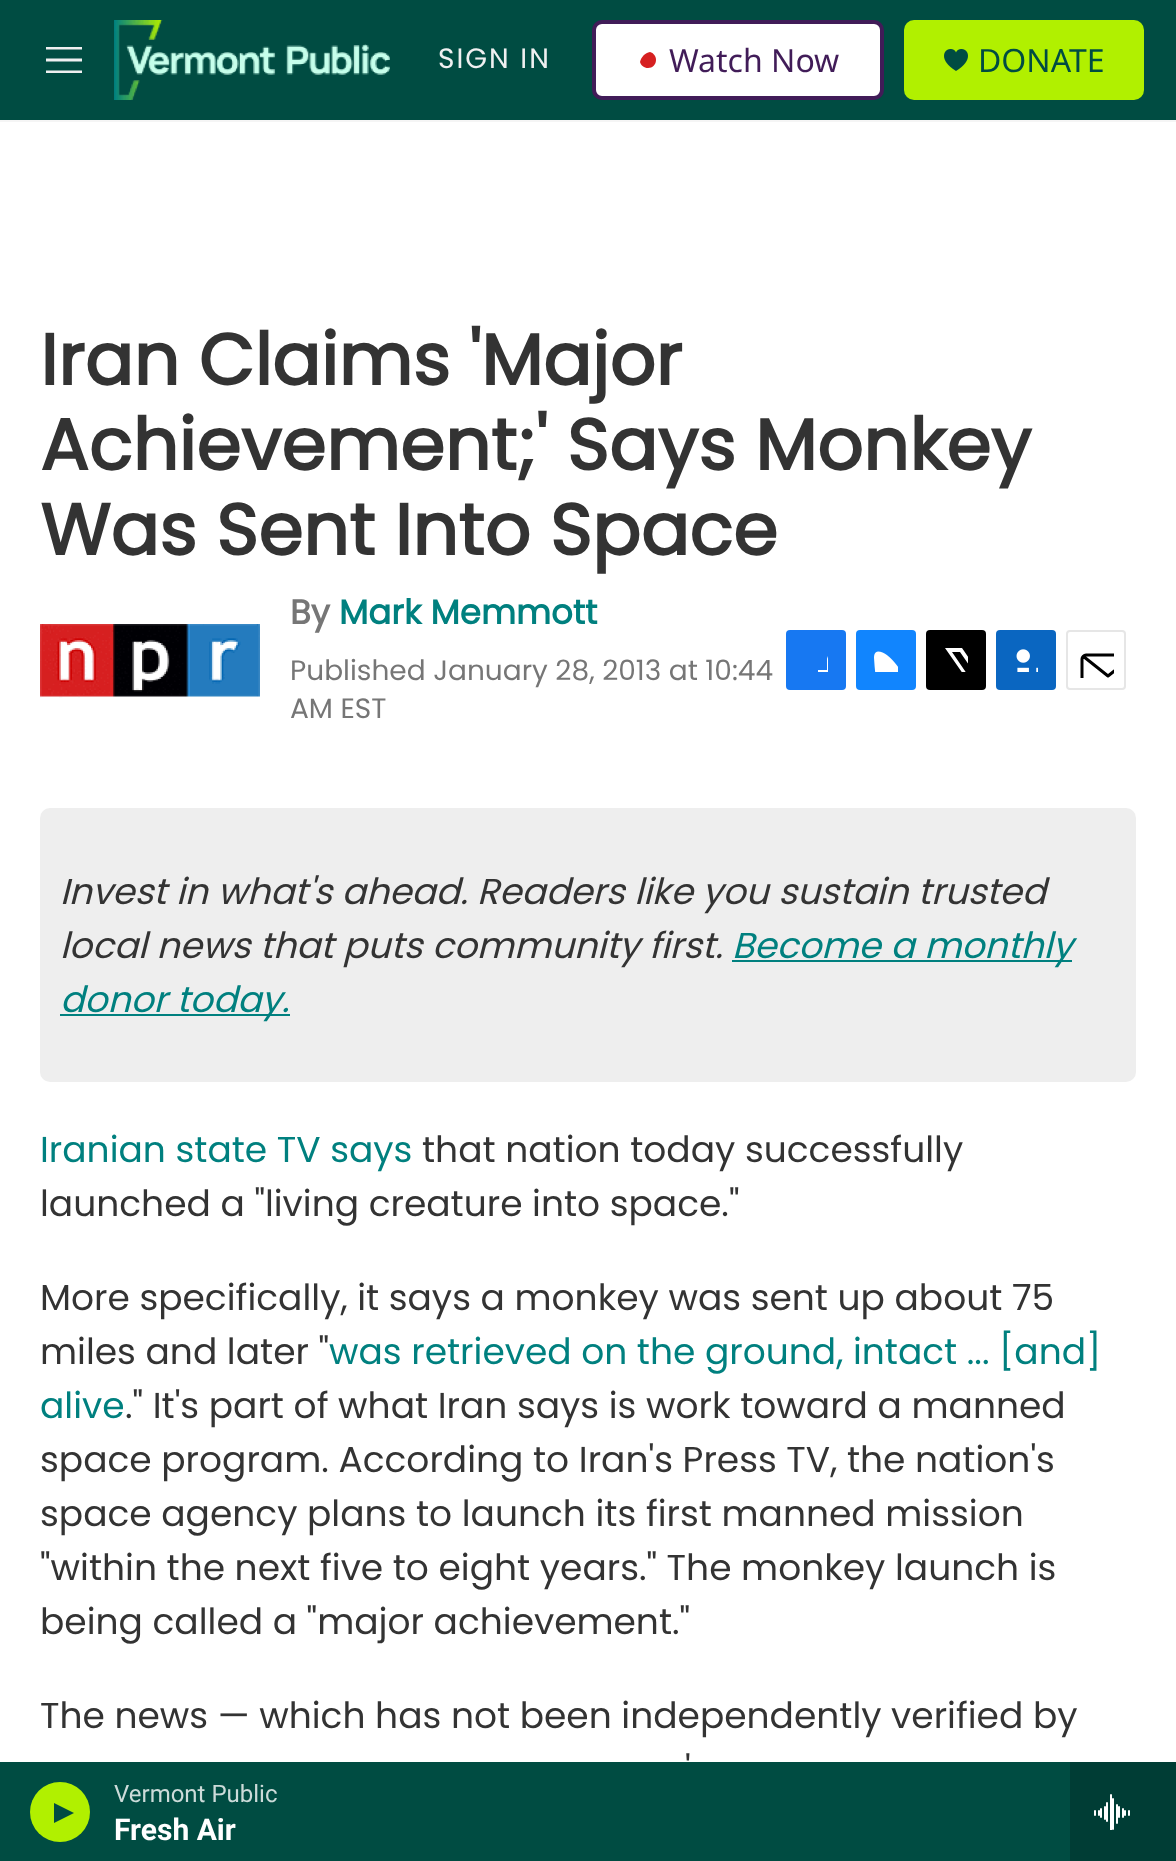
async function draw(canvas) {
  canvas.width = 1176;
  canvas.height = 1861;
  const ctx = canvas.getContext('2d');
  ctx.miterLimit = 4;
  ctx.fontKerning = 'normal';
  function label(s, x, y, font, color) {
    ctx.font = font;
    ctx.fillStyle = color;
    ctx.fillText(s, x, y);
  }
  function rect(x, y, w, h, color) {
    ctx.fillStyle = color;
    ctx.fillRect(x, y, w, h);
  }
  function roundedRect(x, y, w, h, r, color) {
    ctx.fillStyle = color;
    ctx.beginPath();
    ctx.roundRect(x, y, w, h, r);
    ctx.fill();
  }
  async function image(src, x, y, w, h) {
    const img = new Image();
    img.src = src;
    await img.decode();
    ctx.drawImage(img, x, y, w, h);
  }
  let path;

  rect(0, 0, 1176, 1861, '#fff');
  rect(0, 0, 1176, 120, '#004c42');
  rect(0, 120, 1176, 2, '#f5f5f5');
  ctx.fillStyle = '#eff0f1';
  path = new Path2D('M46 61.5V58.5H82V61.5ZM46 49.5V47H82V49.5ZM46 73V70.5H82V73Z');
  ctx.fill(path, 'evenodd');
  await image('assets/img1.png', 114, 20, 276, 80);
  ctx.letterSpacing = '2px';
  label('SIGN IN', 438, 68, '28px Poppins', '#eff0f1');
  ctx.fillStyle = '#fff';
  ctx.beginPath();
  ctx.roundRect(594, 22, 288, 76, 8);
  ctx.fill();
  ctx.strokeStyle = '#411c58';
  ctx.lineWidth = 4;
  ctx.stroke();
  ctx.fillStyle = '#d62021';
  path = new Path2D('M650 52C653.5 53 656 56 656 60C656 64.5 652.5 68 648 68C644 68 641 65.5 640 62C641 57 645 53 650 52Z');
  ctx.fill(path);
  ctx.letterSpacing = '0px';
  label('Watch Now', 669, 72, '32px Noto Sans', '#411c58');
  roundedRect(904, 20, 240, 80, 10, '#b1f000');
  await image('assets/img2.png', 944, 49, 24, 22);
  label('DONATE', 978, 72, '32px Noto Sans', '#004c42');
  rect(0, 1762, 1070, 99, '#004c42');
  ctx.fillStyle = '#b1f000';
  ctx.beginPath();
  ctx.arc(60, 1812, 30, 0, 2 * Math.PI);
  ctx.fill();
  ctx.fillStyle = '#004c42';
  path = new Path2D('M54 1803L74 1813L54 1823Z');
  ctx.fill(path);
  label('Vermont Public', 114, 1802, '24px Roboto', '#ccdbd9');
  label('Fresh Air', 114, 1840, 'bold 30px Roboto', '#fff');
  rect(1070, 1762, 106, 99, '#003d35');
  await image('assets/img3.png', 1094, 1794, 36, 36);
  label('Iran Claims \'Major', 40, 385, 'bold 72px Poppins', '#333');
  label('Achievement;\' Says Monkey', 40, 470, 'bold 72px Poppins', '#333');
  label('Was Sent Into Space', 40, 555, 'bold 72px Poppins', '#333');
  await image('assets/img4.png', 40, 624, 220, 74);
  label('By', 290, 624, 'bold 34px Poppins', '#767676');
  label('Mark Memmott', 339, 624, 'bold 34px Poppins', '#00807f');
  label('Published January 28, 2013 at 10:44', 290, 680, '28px Poppins', '#767676');
  label('AM EST', 290, 718, '28px Poppins', '#767676');
  roundedRect(786, 630, 60, 60, 4, '#1778f2');
  ctx.save();
  ctx.beginPath();
  ctx.rect(804, 648, 24, 24);
  ctx.clip();
  ctx.fillStyle = '#fff';
  path = new Path2D('M837 690H827V680H818V670H827V659C829 650 838 648 846 649V658C835 658 837 661 837 670H846V675L845 680H837Z');
  ctx.fill(path);
  ctx.restore();
  roundedRect(856, 630, 60, 60, 4, '#1185fe');
  await image('assets/img5.png', 874, 651, 24, 21);
  roundedRect(926, 630, 60, 60, 4, '#000');
  ctx.save();
  ctx.beginPath();
  ctx.rect(944, 648, 24, 24);
  ctx.clip();
  ctx.fillStyle = '#fff';
  path = new Path2D('M980 673L986 682C986 684 987 687 985 688L960 652H952L978 690H973L970 685L966 690H960L968 681L945 648H962L977 670L986 660V666Z');
  ctx.fill(path);
  ctx.restore();
  roundedRect(996, 630, 60, 60, 4, '#0a66c1');
  await image('assets/img6.png', 1016, 649, 22, 23);
  ctx.beginPath();
  ctx.roundRect(1067, 631, 58, 58, 3);
  ctx.strokeStyle = '#e6e6e6';
  ctx.lineWidth = 2;
  ctx.stroke();
  ctx.save();
  ctx.beginPath();
  ctx.rect(1078, 642, 36, 36);
  ctx.clip();
  path = new Path2D('M1134 686C1134 688 1132 689.5 1130 689.5H1086C1084 689.5 1082 688 1082 686V659C1082 657 1084 655 1086 655H1130C1132 655 1134 657 1134 659ZM1132.5 656.5L1108 676L1083.5 656.5');
  ctx.strokeStyle = '#000';
  ctx.lineWidth = 3;
  ctx.lineCap = 'round';
  ctx.lineJoin = 'round';
  ctx.stroke(path);
  ctx.restore();
  roundedRect(40, 808, 1096, 274, 10, '#eee');
  label('Invest in what\'s ahead. Readers like you sustain trusted', 60, 904, 'italic 36px Poppins', '#333');
  label('local news that puts community first.', 60, 958, 'italic 36px Poppins', '#333');
  rect(732, 960, 340, 2, '#00807f');
  label('Become a monthly', 732, 958, 'italic 36px Poppins', '#00807f');
  rect(60, 1014, 230, 2, '#00807f');
  label('donor today.', 60, 1012, 'italic 36px Poppins', '#00807f');
  label('Iranian state TV says', 40, 1162, '36px Poppins', '#00807f');
  label('that nation today successfully', 422, 1162, '36px Poppins', '#333');
  label('launched a "living creature into space."', 40, 1216, '36px Poppins', '#333');
  label('More specifically, it says a monkey was sent up about 75', 40, 1310, '36px Poppins', '#333');
  label('miles and later "', 40, 1364, '36px Poppins', '#333');
  label('was retrieved on the ground, intact ... [and]', 329, 1364, '36px Poppins', '#00807f');
  label('alive', 40, 1418, '36px Poppins', '#00807f');
  label('." It\'s part of what Iran says is work toward a manned', 125, 1418, '36px Poppins', '#333');
  label('space program. According to Iran\'s Press TV, the nation\'s', 40, 1472, '36px Poppins', '#333');
  label('space agency plans to launch its first manned mission', 40, 1526, '36px Poppins', '#333');
  label('"within the next five to eight years." The monkey launch is', 40, 1580, '36px Poppins', '#333');
  label('being called a "major achievement."', 40, 1634, '36px Poppins', '#333');
  label('The news — which has not been independently verified by', 40, 1728, '36px Poppins', '#333');
  label('\'', 685, 1782, '36px Poppins', '#333');
}

draw(document.querySelector('canvas'));
